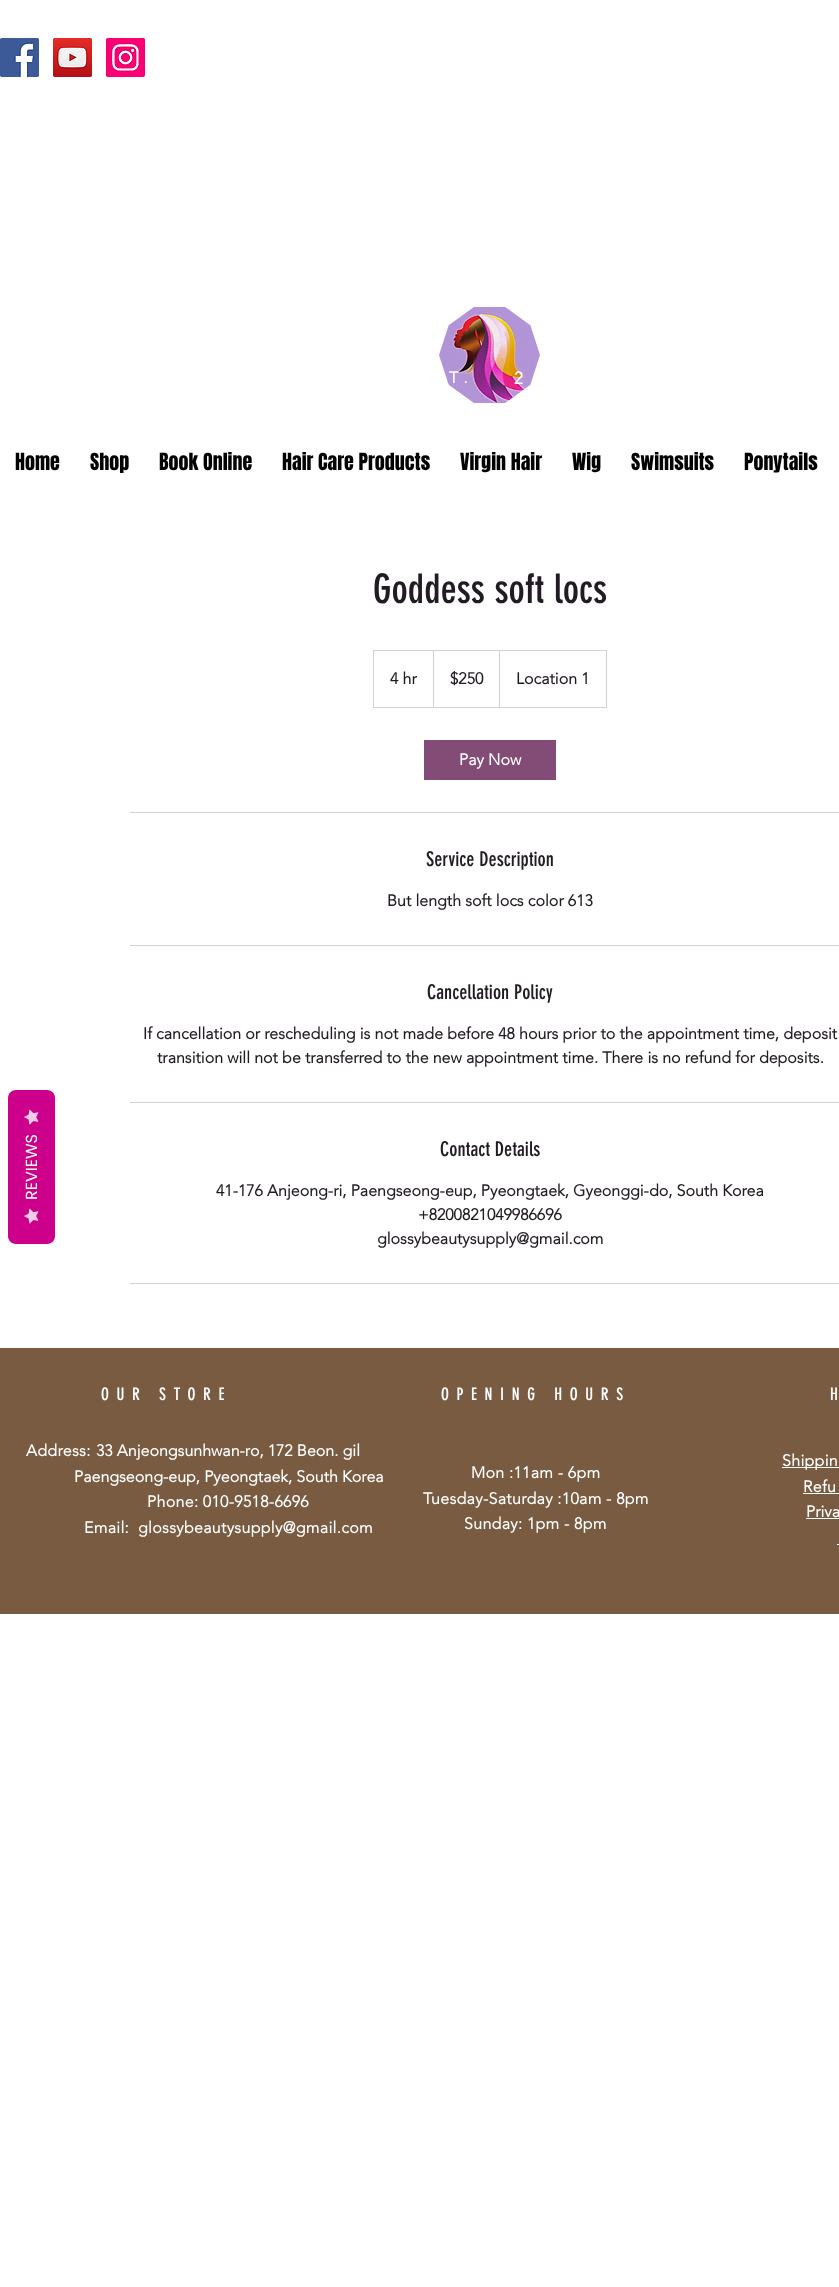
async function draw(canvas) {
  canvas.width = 839;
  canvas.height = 2287;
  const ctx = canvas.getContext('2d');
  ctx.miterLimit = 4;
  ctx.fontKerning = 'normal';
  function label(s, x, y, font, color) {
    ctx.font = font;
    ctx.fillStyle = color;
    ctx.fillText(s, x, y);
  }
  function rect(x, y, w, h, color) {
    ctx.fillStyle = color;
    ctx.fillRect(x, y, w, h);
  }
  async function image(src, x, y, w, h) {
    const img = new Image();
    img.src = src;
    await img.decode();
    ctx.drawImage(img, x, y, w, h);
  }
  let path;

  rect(0, 0, 839, 2287, '#fff');
  await image('assets/img1.png', 0, 38, 39, 39);
  await image('assets/img2.png', 53, 38, 39, 39);
  await image('assets/img3.png', 106, 38, 39, 39);
  await image('assets/img4.png', 439, 307, 101, 96);
  ctx.letterSpacing = '7px';
  label('T.', 449, 383, 'bold 16px "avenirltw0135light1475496"', '#fff');
  ctx.letterSpacing = '7.6px';
  label('2', 514, 384, 'bold 17px "avenirltw0135light1475496"', '#fff');
  ctx.letterSpacing = '0px';
  label('Home', 15, 470, '20px Anton', '#000');
  label('Shop', 90, 470, '20px Anton', '#000');
  label('Book Online', 159, 470, '20px Anton', '#000');
  label('Hair Care Products', 282, 470, '20px Anton', '#000');
  label('Virgin Hair', 460, 470, '20px Anton', '#000');
  label('Wig', 572, 470, '20px Anton', '#000');
  label('Swimsuits', 631, 470, '20px Anton', '#000');
  label('Ponytails', 744, 470, '20px Anton', '#000');
  label('Goddess soft locs', 373, 603, '40px "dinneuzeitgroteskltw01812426"', '#221b23');
  ctx.strokeStyle = '#d3d1d3';
  ctx.strokeRect(373.5, 650.5, 233, 57);
  label('4 hr', 390, 684, 'bold 16px "avenirltw0135light1475496"', '#221b23');
  ctx.fillStyle = '#d3d1d3';
  path = new Path2D('M433 707V650L434 651V707Z');
  ctx.fill(path);
  label('$250', 450, 684, 'bold 16px "avenirltw0135light1475496"', '#221b23');
  ctx.fillStyle = '#d3d1d3';
  path = new Path2D('M499 707V650L500 651V707Z');
  ctx.fill(path);
  label('Location 1', 516, 684, 'bold 16px "avenirltw0135light1475496"', '#221b23');
  rect(424, 740, 132, 40, '#834c76');
  label('Pay Now', 459, 765, 'bold 16px "avenirltw0135light1475496"', '#fff');
  rect(130, 812, 709, 1, '#d3d1d3');
  label('Service Description', 426, 866, '20px "dinneuzeitgroteskltw01812426"', '#221b23');
  label('But length soft locs color 613', 387, 906, 'bold 16px "avenirltw0135light1475496"', '#221b23');
  rect(130, 945, 709, 1, '#d3d1d3');
  label('Cancellation Policy', 427, 999, '20px "dinneuzeitgroteskltw01812426"', '#221b23');
  label('If cancellation or rescheduling is not made before 48 hours prior to the appointment time, deposit', 143, 1039, 'bold 16px "avenirltw0135light1475496"', '#221b23');
  label('transition will not be transferred to the new appointment time. There is no refund for deposits.', 157, 1063, 'bold 16px "avenirltw0135light1475496"', '#221b23');
  rect(130, 1102, 709, 1, '#d3d1d3');
  label('Contact Details', 440, 1156, '20px "dinneuzeitgroteskltw01812426"', '#221b23');
  label('41-176 Anjeong-ri, Paengseong-eup, Pyeongtaek, Gyeonggi-do, South Korea', 216, 1196, 'bold 16px "avenirltw0135light1475496"', '#221b23');
  label('+8200821049986696', 418, 1220, 'bold 16px "avenirltw0135light1475496"', '#221b23');
  label('glossybeautysupply@gmail.com', 377, 1244, 'bold 16px "avenirltw0135light1475496"', '#221b23');
  rect(130, 1283, 709, 1, '#d3d1d3');
  rect(0, 1348, 839, 266, '#795b41');
  ctx.letterSpacing = '7.6px';
  label('OUR STORE', 101, 1400, '17px "dinneuzeitgroteskltw01812426"', '#fff');
  label('OPENING HOURS', 441, 1400, '17px "dinneuzeitgroteskltw01812426"', '#fff');
  label('H', 830, 1400, '17px "dinneuzeitgroteskltw01812426"', '#fff');
  ctx.letterSpacing = '0.3px';
  label('Address:', 26, 1456, 'bold 16px "avenirltw0135light1475496"', '#fff');
  ctx.letterSpacing = '0px';
  label('33 Anjeongsunhwan-ro, 172 Beon. gil', 96, 1456, 'bold 16px "avenirltw0135light1475496"', '#fff');
  label('Paengseong-eup, Pyeongtaek, South Korea', 74, 1482, 'bold 16px "avenirltw0135light1475496"', '#fff');
  ctx.letterSpacing = '0.3px';
  label('Phone: 010-9518-6696', 147, 1507, 'bold 16px "avenirltw0135light1475496"', '#fff');
  label('Email:', 84, 1533, 'bold 16px "avenirltw0135light1475496"', '#fff');
  label('glossybeautysupply@gmail.com', 138, 1533, 'bold 16px "avenirltw0135light1475496"', '#fff');
  label('Mon :11am - 6pm', 471, 1478, 'bold 16px "avenirltw0135light1475496"', '#fff');
  label('Tuesday-Saturday :10am - 8pm', 423, 1504, 'bold 16px "avenirltw0135light1475496"', '#fff');
  label('Sunday: 1pm - 8pm', 464, 1529, 'bold 16px "avenirltw0135light1475496"', '#fff');
  rect(782, 1467, 57, 1, '#fff');
  label('Shippin', 782, 1466, 'bold 16px "avenirltw0135light1475496"', '#fff');
  label('Refu', 803, 1492, 'bold 16px "avenirltw0135light1475496"', '#fff');
  rect(803, 1493, 36, 1, '#fff');
  ctx.letterSpacing = '0px';
  label('Priva', 806, 1517, 'bold 16px "avenirltw0135light1475496"', '#fff');
  rect(806, 1518, 33, 1, '#fff');
  rect(837, 1544, 2, 1, '#fff');
  ctx.fillStyle = '#cc008b';
  path = new Path2D('M8 1236V1098C8 1093 12 1090 16 1090H47C51 1090 55 1093 55 1098V1236C55 1241 51 1244 47 1244H16C12 1244 8 1241 8 1236Z');
  ctx.fill(path);
  await image('assets/img5.png', 24, 1109, 15, 16);
  ctx.font = '16px Poppins';
  ctx.fillStyle = '#fff';
  ctx.save();
  ctx.translate(37, 1200);
  ctx.rotate(-90 * Math.PI / 180);
  ctx.fillText('REVIEWS', 0, 0);
  ctx.restore();
  await image('assets/img5.png', 24, 1208, 15, 16);
}

draw(document.querySelector('canvas'));
